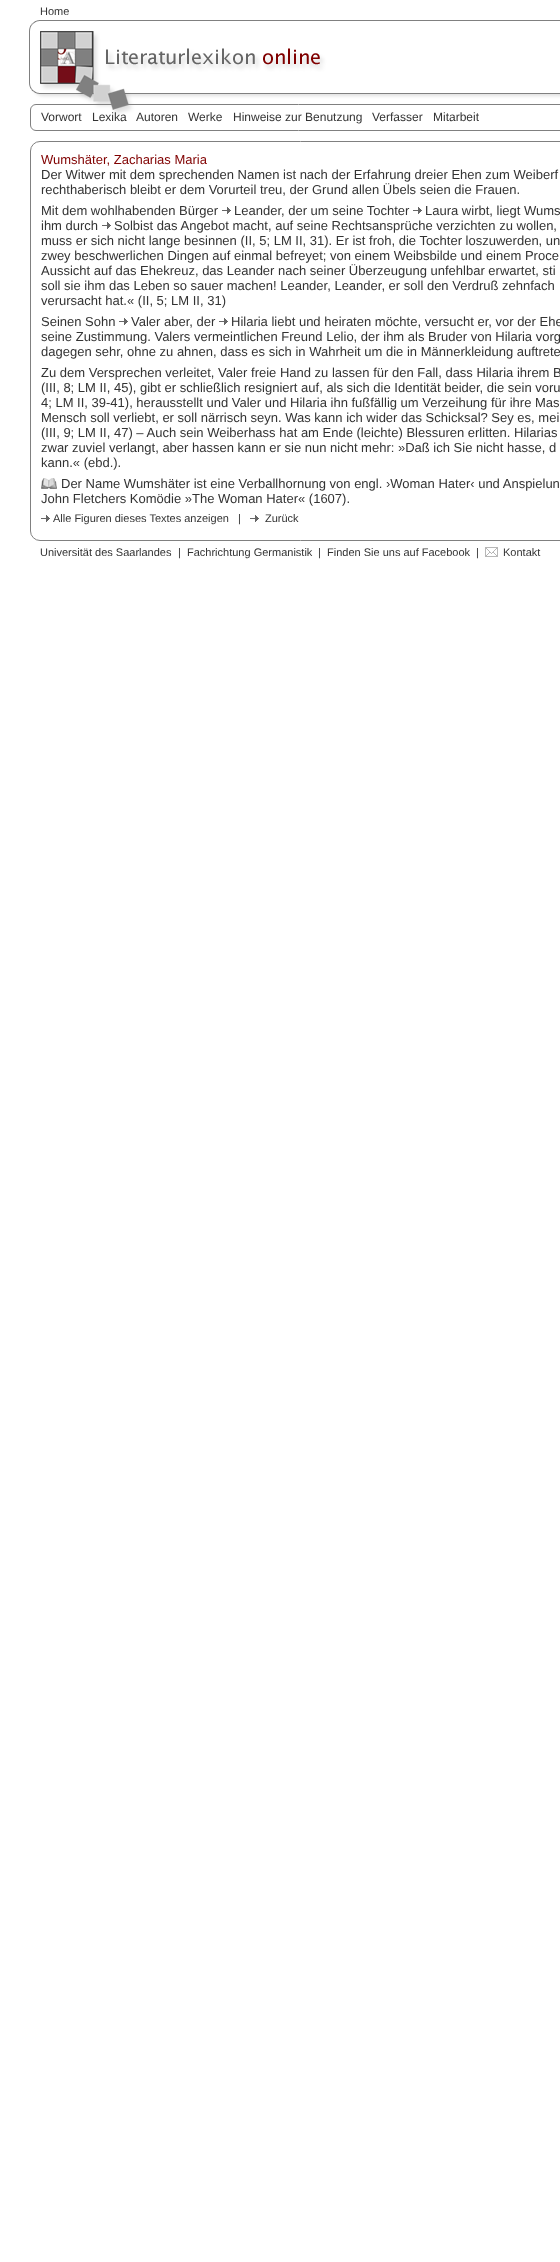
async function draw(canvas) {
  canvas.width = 560;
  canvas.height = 2262;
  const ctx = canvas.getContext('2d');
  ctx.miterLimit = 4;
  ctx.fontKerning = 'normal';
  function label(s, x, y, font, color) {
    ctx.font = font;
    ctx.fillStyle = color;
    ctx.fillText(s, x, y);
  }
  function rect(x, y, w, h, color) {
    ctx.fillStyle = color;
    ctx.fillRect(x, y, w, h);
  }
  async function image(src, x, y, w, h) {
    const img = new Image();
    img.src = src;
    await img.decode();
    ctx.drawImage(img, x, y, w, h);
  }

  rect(0, 0, 560, 2262, '#fff');
  label('Home', 40, 15, '11px Liberation Sans', '#333');
  await image('assets/img1.png', 29, 20, 531, 95);
  ctx.beginPath();
  ctx.roundRect(30.5, 104.5, 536, 26, 5.5);
  ctx.strokeStyle = '#808080';
  ctx.stroke();
  label('Vorwort', 41, 121, '12px Liberation Sans', '#333');
  label('Lexika', 92, 121, '12px Liberation Sans', '#333');
  label('Autoren', 136, 121, '12px Liberation Sans', '#333');
  label('Werke', 188, 121, '12px Liberation Sans', '#333');
  label('Hinweise zur Benutzung', 233, 121, '12px Liberation Sans', '#333');
  label('Verfasser', 372, 121, '12px Liberation Sans', '#333');
  label('Mitarbeit', 433, 121, '12px Liberation Sans', '#333');
  ctx.beginPath();
  ctx.roundRect(30.5, 141.5, 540, 399, 9.5);
  ctx.stroke();
  label('Wumshäter, Zacharias Maria', 41, 164, '13px Liberation Sans', '#800000');
  label('Der Witwer mit dem sprechenden Namen ist nach der Erfahrung dreier Ehen zum Weiberf', 41, 179, '13px Liberation Sans', '#333');
  label('rechthaberisch bleibt er dem Vorurteil treu, der Grund allen Übels seien die Frauen.', 41, 194, '13px Liberation Sans', '#333');
  label('Mit dem wohlhabenden Bürger', 41, 215, '13px Liberation Sans', '#333');
  await image('assets/img2.png', 222, 207, 9, 7);
  label('Leander', 234, 215, '13px Liberation Sans', '#333');
  label(', der um seine Tochter', 281, 215, '13px Liberation Sans', '#333');
  await image('assets/img2.png', 413, 207, 9, 7);
  label('Laura wirbt, liegt Wums', 425, 215, '13px Liberation Sans', '#333');
  label('ihm durch', 41, 230, '13px Liberation Sans', '#333');
  await image('assets/img2.png', 102, 222, 9, 7);
  label('Solbist das Angebot macht, auf seine Rechtsansprüche verzichten zu wollen,', 114, 230, '13px Liberation Sans', '#333');
  label('muss er sich nicht lange besinnen (II, 5; LM II, 31). Er ist froh, die Tochter loszuwerden, un', 41, 245, '13px Liberation Sans', '#333');
  label('zwey beschwerlichen Dingen auf einmal befreyet; von einem Weibsbilde und einem Proce', 41, 260, '13px Liberation Sans', '#333');
  label('Aussicht auf das Ehekreuz, das Leander nach seiner Überzeugung unfehlbar erwartet, sti', 41, 275, '13px Liberation Sans', '#333');
  label('soll sie ihm das Leben so sauer machen! Leander, Leander, er soll den Verdruß zehnfach', 41, 290, '13px Liberation Sans', '#333');
  label('verursacht hat.« (II, 5; LM II, 31)', 41, 305, '13px Liberation Sans', '#333');
  label('Seinen Sohn', 41, 326, '13px Liberation Sans', '#333');
  await image('assets/img2.png', 119, 318, 9, 7);
  label('Valer aber, der', 131, 326, '13px Liberation Sans', '#333');
  await image('assets/img2.png', 219, 318, 9, 7);
  label('Hilaria liebt und heiraten möchte, versucht er, vor der Ehe', 231, 326, '13px Liberation Sans', '#333');
  label('seine Zustimmung. Valers vermeintlichen Freund Lelio, der ihm als Bruder von Hilaria vorg', 41, 341, '13px Liberation Sans', '#333');
  label('dagegen sehr, ohne zu ahnen, dass es sich in Wahrheit um die in Männerkleidung auftrete', 41, 356, '13px Liberation Sans', '#333');
  label('Zu dem Versprechen verleitet, Valer freie Hand zu lassen für den Fall, dass Hilaria ihrem B', 41, 377, '13px Liberation Sans', '#333');
  label('(III, 8; LM II, 45), gibt er schließlich resigniert auf, als sich die Identität beider, die sein voru', 41, 392, '13px Liberation Sans', '#333');
  label('4; LM II, 39-41), herausstellt und Valer und Hilaria ihn fußfällig um Verzeihung für ihre Mas', 41, 407, '13px Liberation Sans', '#333');
  label('Mensch soll verliebt, er soll närrisch seyn. Was kann ich wider das Schicksal? Sey es, mei', 41, 422, '13px Liberation Sans', '#333');
  label('(III, 9; LM II, 47) – Auch sein Weiberhass hat am Ende (leichte) Blessuren erlitten. Hilarias', 41, 437, '13px Liberation Sans', '#333');
  label('zwar zuviel verlangt, aber hassen kann er sie nun nicht mehr: »Daß ich Sie nicht hasse, d', 41, 452, '13px Liberation Sans', '#333');
  label('kann.« (ebd.).', 41, 467, '13px Liberation Sans', '#333');
  await image('assets/img3.png', 41, 478, 16, 11);
  label('Der Name Wumshäter ist eine Verballhornung von engl. ›Woman Hater‹ und Anspielun', 61, 488, '13px Liberation Sans', '#333');
  label('John Fletchers Komödie »The Woman Hater« (1607).', 41, 503, '13px Liberation Sans', '#333');
  await image('assets/img2.png', 41, 515, 9, 7);
  label('Alle Figuren dieses Textes anzeigen', 53, 522, '11px Liberation Sans', '#333');
  label('|', 238, 522, '11px Liberation Sans', '#333');
  await image('assets/img2.png', 250, 515, 9, 7);
  label('Zurück', 265, 522, '11px Liberation Sans', '#333');
  label('Universität des Saarlandes', 40, 556, '11px Liberation Sans', '#333');
  label('|', 178, 556, '11px Liberation Sans', '#333');
  label('Fachrichtung Germanistik', 187, 556, '11px Liberation Sans', '#333');
  label('|', 318, 556, '11px Liberation Sans', '#333');
  label('Finden Sie uns auf Facebook', 327, 556, '11px Liberation Sans', '#333');
  label('|', 476, 556, '11px Liberation Sans', '#333');
  await image('assets/img4.png', 485, 547, 13, 10);
  label('Kontakt', 503, 556, '11px Liberation Sans', '#333');
}

draw(document.querySelector('canvas'));
